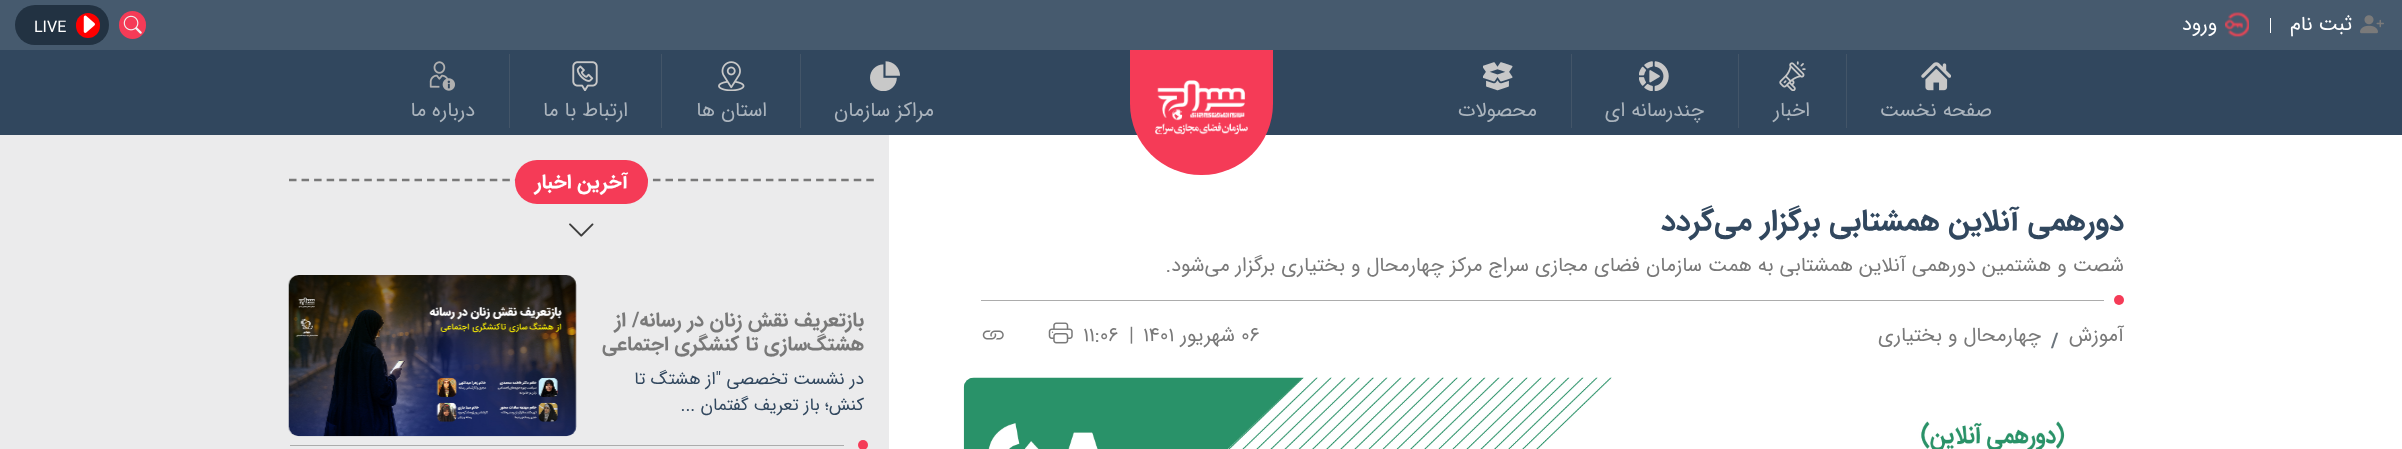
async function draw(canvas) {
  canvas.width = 2402;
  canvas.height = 449;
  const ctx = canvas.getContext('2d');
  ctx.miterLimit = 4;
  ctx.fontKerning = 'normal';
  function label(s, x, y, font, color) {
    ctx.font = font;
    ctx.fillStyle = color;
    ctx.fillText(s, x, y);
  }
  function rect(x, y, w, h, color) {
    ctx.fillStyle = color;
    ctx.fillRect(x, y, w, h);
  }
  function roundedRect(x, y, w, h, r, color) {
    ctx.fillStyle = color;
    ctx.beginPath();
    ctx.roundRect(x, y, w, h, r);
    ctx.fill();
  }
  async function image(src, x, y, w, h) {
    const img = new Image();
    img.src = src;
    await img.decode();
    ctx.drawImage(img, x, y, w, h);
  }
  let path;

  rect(0, 0, 2402, 449, '#fff');
  rect(0, 50, 2402, 85, '#31475e');
  rect(0, 0, 2402, 50, '#465a6e');
  await image('assets/img1.png', 2360, 15, 24, 19);
  ctx.direction = 'rtl';
  label('ثبت نام', 2352, 30, '20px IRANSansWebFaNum', '#fff');
  rect(2270, 18, 1, 15, '#fff');
  await image('assets/img2.png', 2225, 12, 24, 26);
  label('ورود', 2217, 30, '20px IRANSansWebFaNum', '#fff');
  roundedRect(119, 11, 27, 28, 13.5, '#f53b57');
  await image('assets/img3.png', 123, 15, 19, 19);
  roundedRect(15, 5, 94, 40, 20, '#223242');
  roundedRect(76, 13, 24, 25, 12, '#f00');
  await image('assets/img4.png', 83, 15, 12, 18);
  ctx.direction = 'ltr';
  label('LIVE', 34, 32, '16px IRANSansWebFaNum', '#fff');
  await image('assets/img5.png', 1921, 62, 30, 29);
  ctx.direction = 'rtl';
  label('صفحه نخست', 1992, 116, '20px IRANSansWebFaNum', '#abb4bd');
  rect(1846, 54, 1, 74, '#435568');
  await image('assets/img6.png', 1779, 61, 27, 30);
  label('اخبار', 1810, 116, '20px IRANSansWebFaNum', '#abb4bd');
  rect(1738, 54, 1, 74, '#435568');
  await image('assets/img7.png', 1639, 61, 30, 30);
  label('چندرسانه ای', 1704, 116, '20px IRANSansWebFaNum', '#abb4bd');
  rect(1571, 54, 1, 74, '#435568');
  await image('assets/img8.png', 1483, 62, 30, 29);
  label('محصولات', 1537, 116, '20px IRANSansWebFaNum', '#abb4bd');
  ctx.fillStyle = '#f53b57';
  ctx.beginPath();
  ctx.roundRect(1130, 50, 143, 125, [0, 0, 71, 71]);
  ctx.fill();
  await image('assets/img9.png', 1155, 80, 93, 55);
  await image('assets/img10.png', 870, 61, 30, 30);
  label('مراکز سازمان', 934, 116, '20px IRANSansWebFaNum', '#abb4bd');
  rect(800, 54, 1, 74, '#435568');
  await image('assets/img11.png', 718, 61, 27, 30);
  label('استان ها', 767, 116, '20px IRANSansWebFaNum', '#abb4bd');
  rect(661, 54, 1, 74, '#435568');
  await image('assets/img12.png', 572, 61, 26, 30);
  label('ارتباط با ما', 628, 116, '20px IRANSansWebFaNum', '#abb4bd');
  rect(509, 54, 1, 74, '#435568');
  await image('assets/img13.png', 429, 61, 26, 30);
  label('درباره ما', 475, 116, '20px IRANSansWebFaNum', '#abb4bd');
  rect(0, 135, 889, 314, '#ebebec');
  label('دورهمی آنلاین همشتابی برگزار می‌گردد', 2124, 230, 'bold 30px IRANSansWebFaNum', '#31475e');
  label('شصت و هشتمین دورهمی آنلاین همشتابی به همت سازمان فضای مجازی سراج مرکز چهارمحال و بختیاری برگزار می‌شود.', 2124, 271, '20px IRANSansWebFaNum', '#797979');
  ctx.fillStyle = '#f53b57';
  ctx.beginPath();
  ctx.arc(2119, 300, 5, 0, 2 * Math.PI);
  ctx.fill();
  rect(981, 300, 1123, 1, '#acacac');
  label('آموزش', 2124, 341, '20px IRANSansWebFaNum', '#797979');
  ctx.direction = 'ltr';
  label('/', 2051, 347, 'bold 20px IRANSansWebFaNum', '#6c757d');
  ctx.direction = 'rtl';
  label('چهارمحال و بختیاری', 2041, 341, '20px IRANSansWebFaNum', '#797979');
  ctx.direction = 'ltr';
  label('۰۶', 1241, 341, '20px IRANSansWebFaNum', '#797979');
  ctx.direction = 'rtl';
  label('شهریور', 1235, 341, '20px IRANSansWebFaNum', '#797979');
  ctx.direction = 'ltr';
  label('۱۴۰۱', 1143, 341, '20px IRANSansWebFaNum', '#797979');
  label('|', 1129, 341, '20px IRANSansWebFaNum', '#797979');
  label('۱۱:۰۶', 1083, 341, '20px IRANSansWebFaNum', '#797979');
  await image('assets/img14.png', 1048, 322, 25, 22);
  await image('assets/img15.png', 982, 330, 22, 10);
  await image('assets/img16.png', 963, 377, 1102, 72);
  path = new Path2D('M289 180H874');
  ctx.strokeStyle = '#797979';
  ctx.lineWidth = 2.5;
  ctx.setLineDash([7.5, 5.05]);
  ctx.stroke(path);
  roundedRect(515, 160, 133, 44, 22, '#f53b57');
  ctx.direction = 'rtl';
  label('آخرین اخبار', 628, 188, 'bold 20px IRANSansWebFaNum', '#fff');
  await image('assets/img17.png', 569, 223, 25, 14);
  label('بازتعریف نقش زنان در رسانه/ از', 864, 326, 'bold 20px IRANSansWebFaNum', '#797979');
  label('هشتگ‌سازی تا کنشگری اجتماعی', 864, 350, 'bold 20px IRANSansWebFaNum', '#797979');
  label('در نشست تخصصی "از هشتگ تا', 864, 384, '17.5px IRANSansWebFaNum', '#31475e');
  label('کنش؛ باز تعریف گفتمان ...', 864, 410, '17.5px IRANSansWebFaNum', '#31475e');
  await image('assets/img18.png', 288, 275, 289, 162);
  ctx.fillStyle = '#f53b57';
  ctx.beginPath();
  ctx.arc(863, 445, 5, 0, 2 * Math.PI);
  ctx.fill();
  rect(290, 445, 554, 1, '#acacac');
}

draw(document.querySelector('canvas'));
